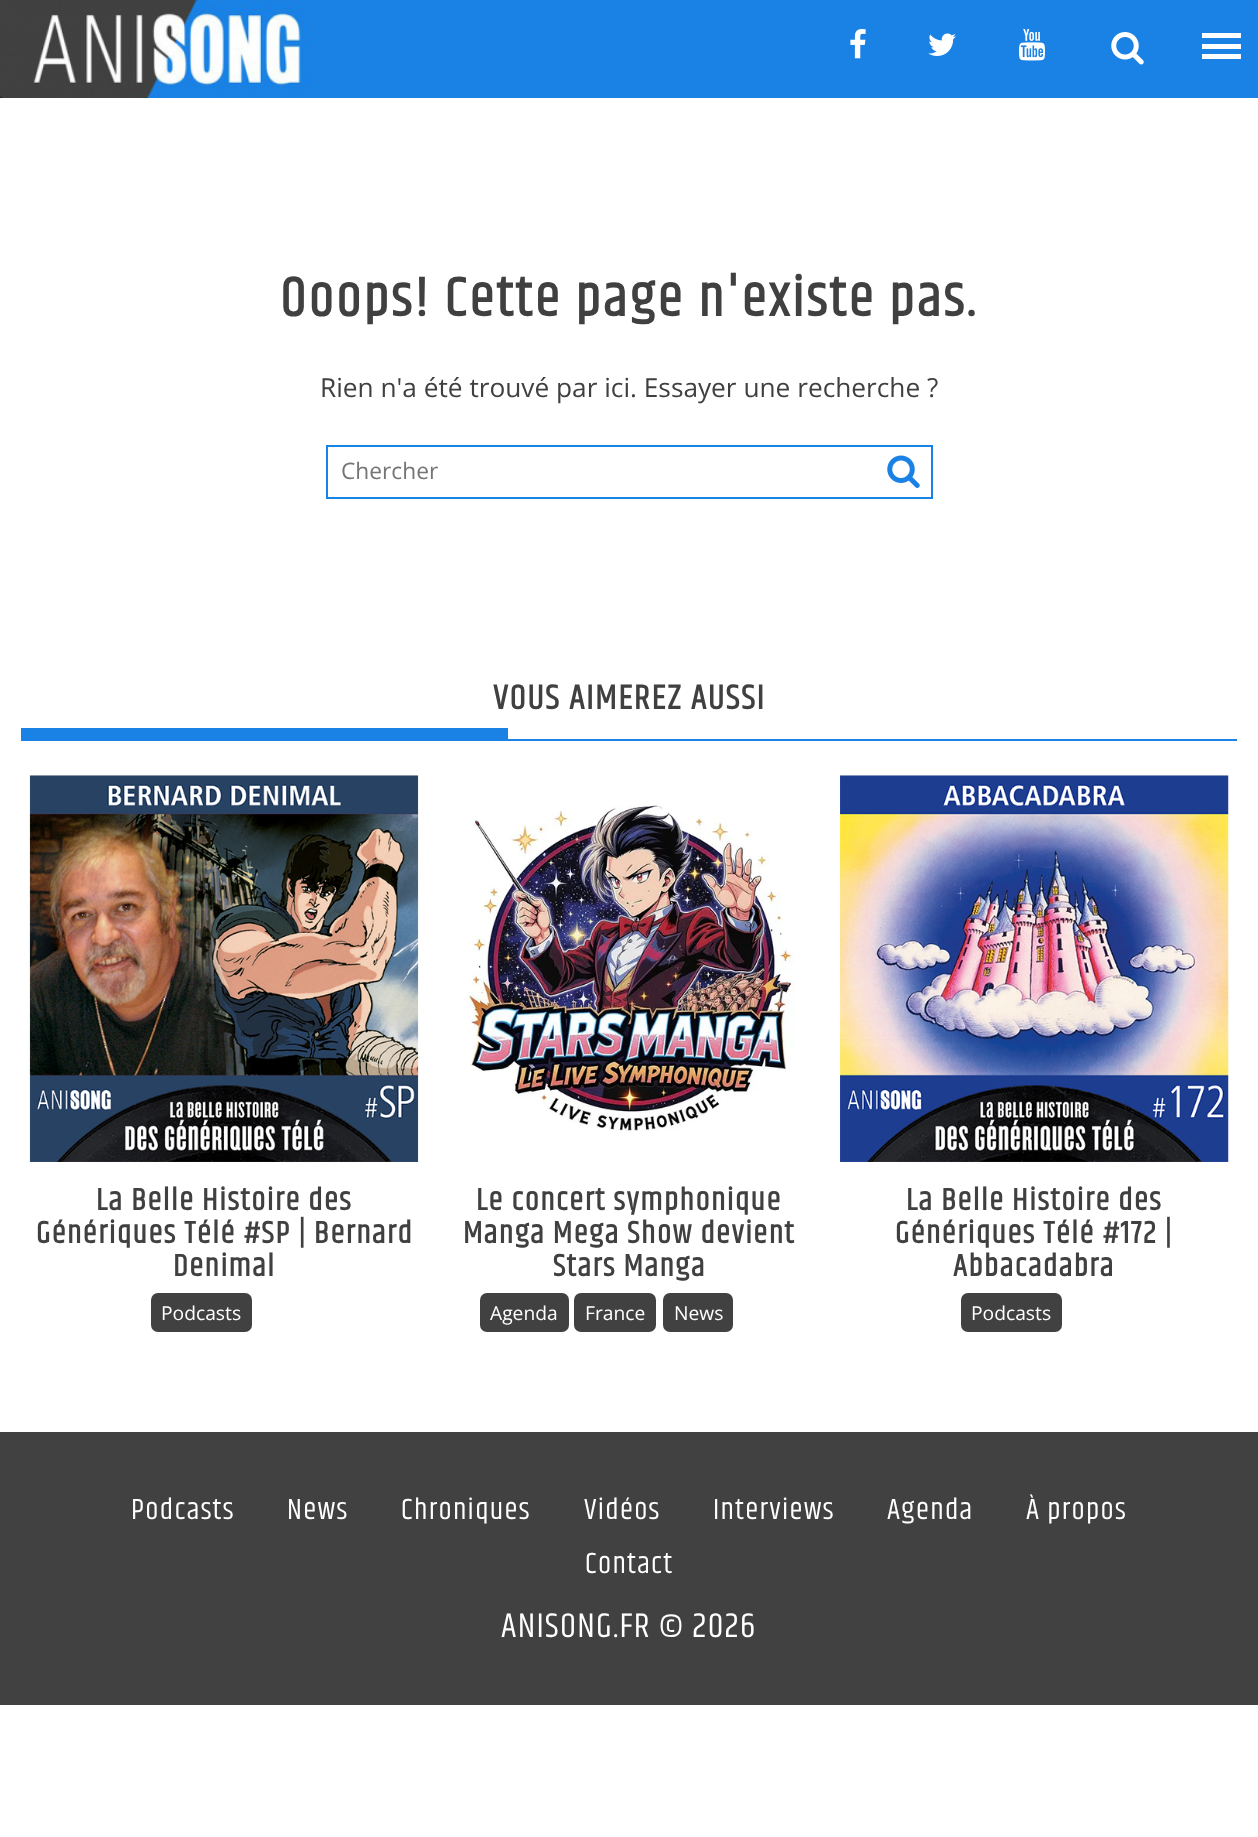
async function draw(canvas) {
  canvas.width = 1258;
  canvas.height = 1837;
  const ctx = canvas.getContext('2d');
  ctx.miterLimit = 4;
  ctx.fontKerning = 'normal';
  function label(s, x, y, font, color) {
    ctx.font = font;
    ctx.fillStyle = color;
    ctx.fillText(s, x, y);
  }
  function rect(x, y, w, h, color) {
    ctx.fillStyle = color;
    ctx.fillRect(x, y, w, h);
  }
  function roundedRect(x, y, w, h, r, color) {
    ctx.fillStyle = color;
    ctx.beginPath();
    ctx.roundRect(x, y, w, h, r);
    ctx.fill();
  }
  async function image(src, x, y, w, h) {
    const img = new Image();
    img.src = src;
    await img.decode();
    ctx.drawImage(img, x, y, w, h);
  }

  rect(0, 0, 1258, 1837, '#fff');
  rect(311, 0, 947, 98, '#1a82e5');
  await image('assets/img1.png', 0, 0, 311, 98);
  await image('assets/img2.png', 850, 29, 16, 30);
  await image('assets/img3.png', 928, 33, 28, 23);
  await image('assets/img4.png', 1019, 29, 26, 32);
  await image('assets/img5.png', 1111, 32, 33, 33);
  rect(1202, 54, 39, 5, '#fff');
  rect(1202, 44, 39, 5, '#fff');
  rect(1202, 33, 39, 5, '#fff');
  ctx.letterSpacing = '2.8px';
  label('Ooops! Cette page n\'existe pas.', 280, 316, 'bold 56px Khand', '#404040');
  ctx.letterSpacing = '0px';
  label('Rien n\'a été trouvé par ici. Essayer une recherche ?', 320, 397, '26.25px Open Sans', '#404040');
  ctx.strokeStyle = '#1a82e5';
  ctx.lineWidth = 2;
  ctx.strokeRect(327, 446, 605, 52);
  label('Chercher', 341, 479, '22.75px Open Sans', '#757575');
  await image('assets/img6.png', 887, 455, 33, 33);
  rect(21, 739, 1216, 2, '#1a82e5');
  ctx.letterSpacing = '1.75px';
  label('VOUS AIMEREZ AUSSI', 493, 709, 'bold 35px Khand', '#404040');
  rect(21, 728, 487, 11, '#1a82e5');
  await image('assets/img7.png', 29, 775, 390, 387);
  ctx.letterSpacing = '1.6px';
  label('La Belle Histoire des', 96, 1210, 'bold 31.5px Khand', '#404040');
  label('Génériques Télé #SP | Bernard', 36, 1243, 'bold 31.5px Khand', '#404040');
  label('Denimal', 173, 1276, 'bold 31.5px Khand', '#404040');
  roundedRect(151, 1293, 101, 39, 7, '#414141');
  ctx.letterSpacing = '0px';
  label('Podcasts', 161, 1320, '19.25px Open Sans', '#fff');
  await image('assets/img8.png', 466, 803, 329, 328);
  ctx.letterSpacing = '1.6px';
  label('Le concert symphonique', 476, 1210, 'bold 31.5px Khand', '#404040');
  label('Manga Mega Show devient', 463, 1243, 'bold 31.5px Khand', '#404040');
  label('Stars Manga', 553, 1276, 'bold 31.5px Khand', '#404040');
  roundedRect(480, 1293, 89, 39, 7, '#414141');
  ctx.letterSpacing = '0px';
  label('Agenda', 490, 1320, '19.25px Open Sans', '#fff');
  roundedRect(574, 1293, 82, 39, 7, '#414141');
  label('France', 585, 1320, '19.25px Open Sans', '#fff');
  roundedRect(663, 1293, 70, 39, 7, '#414141');
  label('News', 674, 1320, '19.25px Open Sans', '#fff');
  await image('assets/img9.png', 840, 775, 389, 387);
  ctx.letterSpacing = '1.6px';
  label('La Belle Histoire des', 906, 1210, 'bold 31.5px Khand', '#404040');
  label('Génériques Télé #172 |', 895, 1243, 'bold 31.5px Khand', '#404040');
  label('Abbacadabra', 953, 1276, 'bold 31.5px Khand', '#404040');
  roundedRect(961, 1293, 101, 39, 7, '#414141');
  ctx.letterSpacing = '0px';
  label('Podcasts', 971, 1320, '19.25px Open Sans', '#fff');
  rect(0, 1432, 1258, 273, '#414141');
  ctx.letterSpacing = '1.3px';
  label('Podcasts', 131, 1519, '29.75px Khand', '#fff');
  label('News', 287, 1519, '29.75px Khand', '#fff');
  label('Chroniques', 401, 1519, '29.75px Khand', '#fff');
  label('Vidéos', 584, 1519, '29.75px Khand', '#fff');
  label('Interviews', 713, 1519, '29.75px Khand', '#fff');
  label('Agenda', 887, 1519, '29.75px Khand', '#fff');
  label('À propos', 1026, 1519, '29.75px Khand', '#fff');
  label('Contact', 585, 1573, '29.75px Khand', '#fff');
  label('ANISONG.FR © 2026', 501, 1637, '35px Khand', '#fff');
}

draw(document.querySelector('canvas'));
